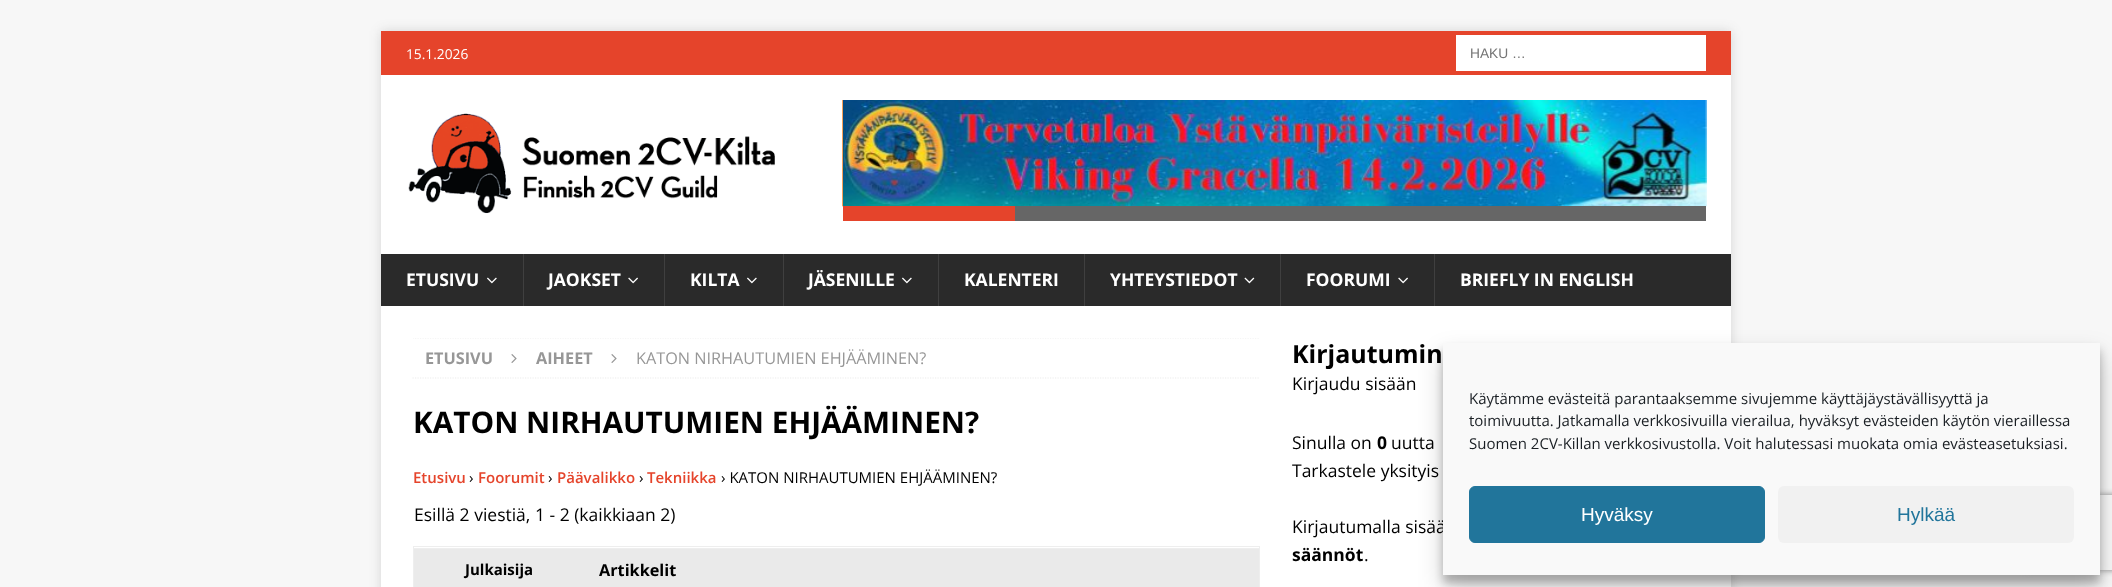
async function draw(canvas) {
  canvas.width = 2112;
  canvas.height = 587;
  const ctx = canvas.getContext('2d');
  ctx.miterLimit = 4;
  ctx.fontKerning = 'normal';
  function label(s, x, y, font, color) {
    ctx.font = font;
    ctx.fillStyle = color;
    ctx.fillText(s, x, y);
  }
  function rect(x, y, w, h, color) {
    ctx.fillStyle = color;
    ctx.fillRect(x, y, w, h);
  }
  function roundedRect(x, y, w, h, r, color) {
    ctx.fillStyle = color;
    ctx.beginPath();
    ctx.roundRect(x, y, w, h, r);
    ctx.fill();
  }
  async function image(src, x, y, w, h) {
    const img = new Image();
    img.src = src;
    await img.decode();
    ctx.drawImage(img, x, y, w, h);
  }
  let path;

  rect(0, 0, 2112, 587, '#f7f7f7');
  ctx.fillStyle = '#3232322b';
  ctx.filter = 'blur(6px)';
  ctx.beginPath();
  ctx.rect(381, 31, 1350, 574);
  ctx.fill();
  ctx.filter = 'none';
  rect(381, 31, 1350, 44, '#e5442b');
  label('15.1.2026', 406, 59, '13.75px Open Sans', '#fff');
  rect(1456, 35, 250, 36, '#fff');
  label('HAKU …', 1470, 58, '13.75px Liberation Sans', '#757575');
  rect(381, 75, 1350, 179, '#fff');
  await image('assets/img1.png', 408, 113, 367, 101);
  await image('assets/img2.png', 842, 100, 1, 107);
  await image('assets/img3.png', 843, 100, 864, 107);
  rect(1015, 206, 691, 15, '#666');
  rect(843, 206, 172, 15, '#e5442b');
  rect(381, 254, 1350, 52, '#2a2a2a');
  label('ETUSIVU', 406, 286, 'bold 17.5px Open Sans', '#fff');
  await image('assets/img4.png', 487, 277, 10, 7);
  rect(523, 254, 1, 52, '#3f3f3f');
  label('JAOKSET', 548, 286, 'bold 17.5px Open Sans', '#fff');
  await image('assets/img5.png', 628, 277, 10, 7);
  rect(664, 254, 1, 52, '#3f3f3f');
  label('KILTA', 690, 286, 'bold 17.5px Open Sans', '#fff');
  await image('assets/img4.png', 747, 277, 10, 7);
  rect(783, 254, 1, 52, '#3f3f3f');
  label('JÄSENILLE', 808, 286, 'bold 17.5px Open Sans', '#fff');
  await image('assets/img4.png', 902, 277, 10, 7);
  rect(938, 254, 1, 52, '#3f3f3f');
  label('KALENTERI', 964, 286, 'bold 17.5px Open Sans', '#fff');
  rect(1084, 254, 1, 52, '#3f3f3f');
  label('YHTEYSTIEDOT', 1110, 286, 'bold 17.5px Open Sans', '#fff');
  await image('assets/img6.png', 1244, 277, 11, 7);
  rect(1280, 254, 1, 52, '#3f3f3f');
  label('FOORUMI', 1306, 286, 'bold 17.5px Open Sans', '#fff');
  await image('assets/img5.png', 1398, 277, 10, 7);
  rect(1434, 254, 1, 52, '#3f3f3f');
  label('BRIEFLY IN ENGLISH', 1460, 286, 'bold 17.5px Open Sans', '#fff');
  rect(381, 306, 1350, 281, '#fff');
  ctx.save();
  ctx.beginPath();
  ctx.rect(413, 338, 847, 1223);
  ctx.clip();
  path = new Path2D('M412.5 338H1260');
  ctx.strokeStyle = '#ebebeb';
  ctx.lineWidth = 1.2;
  ctx.setLineDash([1.25, 1.25]);
  ctx.stroke(path);
  ctx.restore();
  path = new Path2D('M412.5 378H1260');
  ctx.strokeStyle = '#ebebeb';
  ctx.lineWidth = 1.2;
  ctx.setLineDash([1.25, 1.25]);
  ctx.stroke(path);
  label('ETUSIVU', 425, 364, 'bold 16.25px Open Sans', '#979797');
  await image('assets/img7.png', 511, 354, 6, 9);
  label('AIHEET', 536, 364, 'bold 16.25px Open Sans', '#979797');
  await image('assets/img7.png', 611, 354, 6, 9);
  label('KATON NIRHAUTUMIEN EHJÄÄMINEN?', 636, 364, '16.25px Open Sans', '#979797');
  label('KATON NIRHAUTUMIEN EHJÄÄMINEN?', 413, 433, 'bold 29.75px Open Sans', '#000');
  label('Etusivu', 413, 483, '600 15px Open Sans', '#e5442b');
  label('›', 469, 483, '15px Open Sans', '#000');
  label('Foorumit', 478, 483, '600 15px Open Sans', '#e5442b');
  label('›', 548, 483, '15px Open Sans', '#000');
  label('Päävalikko', 557, 483, '600 15px Open Sans', '#e5442b');
  label('›', 639, 483, '15px Open Sans', '#000');
  label('Tekniikka', 647, 483, '600 15px Open Sans', '#e5442b');
  label('› KATON NIRHAUTUMIEN EHJÄÄMINEN?', 721, 483, '15px Open Sans', '#000');
  label('Esillä 2 viestiä, 1 - 2 (kaikkiaan 2)', 414, 521, '17.5px Open Sans', '#000');
  ctx.strokeStyle = '#eee';
  ctx.lineWidth = 1;
  ctx.setLineDash([]);
  ctx.strokeRect(413.5, 546.5, 846, 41);
  rect(414, 549, 845, 38, '#eaeaea');
  rect(414, 548, 845, 1, '#eee');
  label('Julkaisija', 465, 575, 'bold 15px Open Sans', '#000');
  label('Artikkelit', 599, 576, 'bold 16.25px Open Sans', '#000');
  label('Kirjautumin', 1292, 363, 'bold 25px Open Sans', '#000');
  label('Kirjaudu sisään', 1292, 390, '17.5px Open Sans', '#000');
  label('Sinulla on', 1292, 449, '17.5px Open Sans', '#000');
  label('0', 1377, 449, 'bold 17.5px Open Sans', '#000');
  label('uutta', 1391, 449, '17.5px Open Sans', '#000');
  label('Tarkastele yksityis', 1292, 477, '17.5px Open Sans', '#000');
  label('Kirjautumalla sisää', 1292, 533, '17.5px Open Sans', '#000');
  label('säännöt', 1292, 561, 'bold 17.5px Open Sans', '#000');
  label('.', 1364, 561, '17.5px Open Sans', '#000');
  ctx.fillStyle = '#0000003b';
  ctx.filter = 'blur(4px)';
  ctx.beginPath();
  ctx.rect(1443, 350, 657, 233);
  ctx.fill();
  ctx.filter = 'none';
  ctx.fillStyle = '#00000030';
  ctx.filter = 'blur(12.5px)';
  ctx.beginPath();
  ctx.rect(1443, 355, 657, 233);
  ctx.fill();
  ctx.filter = 'none';
  ctx.save();
  path = new Path2D('M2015 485H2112V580H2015ZM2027.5 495H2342.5C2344 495 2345 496 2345 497.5V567.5C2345 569 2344 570 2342.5 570H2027.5C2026 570 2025 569 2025 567.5V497.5C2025 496 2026 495 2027.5 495Z');
  ctx.clip(path, 'evenodd');
  ctx.fillStyle = '#808080';
  ctx.filter = 'blur(3px)';
  ctx.beginPath();
  ctx.roundRect(2025, 495, 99, 75, 2.5);
  ctx.fill();
  ctx.filter = 'none';
  ctx.restore();
  rect(1443, 343, 657, 232, '#f9f9f9');
  label('Käytämme evästeitä parantaaksemme sivujemme käyttäjäystävällisyyttä ja', 1469, 404, '15px Open Sans', '#191e23');
  label('toimivuutta. Jatkamalla verkkosivuilla vierailua, hyväksyt evästeiden käytön vieraillessa', 1469, 426, '15px Open Sans', '#191e23');
  label('Suomen 2CV-Killan verkkosivustolla. Voit halutessasi muokata omia evästeasetuksiasi.', 1469, 449, '15px Open Sans', '#191e23');
  ctx.fillStyle = '#21759b';
  ctx.beginPath();
  ctx.roundRect(1469.5, 486.5, 295, 56, 5.5);
  ctx.fill();
  ctx.strokeStyle = '#21759b';
  ctx.stroke();
  label('Hyväksy', 1581, 521, '19px Liberation Sans', '#fff');
  roundedRect(1778, 486, 296, 57, 6, '#f1f1f1');
  label('Hylkää', 1897, 521, '19px Liberation Sans', '#21759b');
}

draw(document.querySelector('canvas'));
